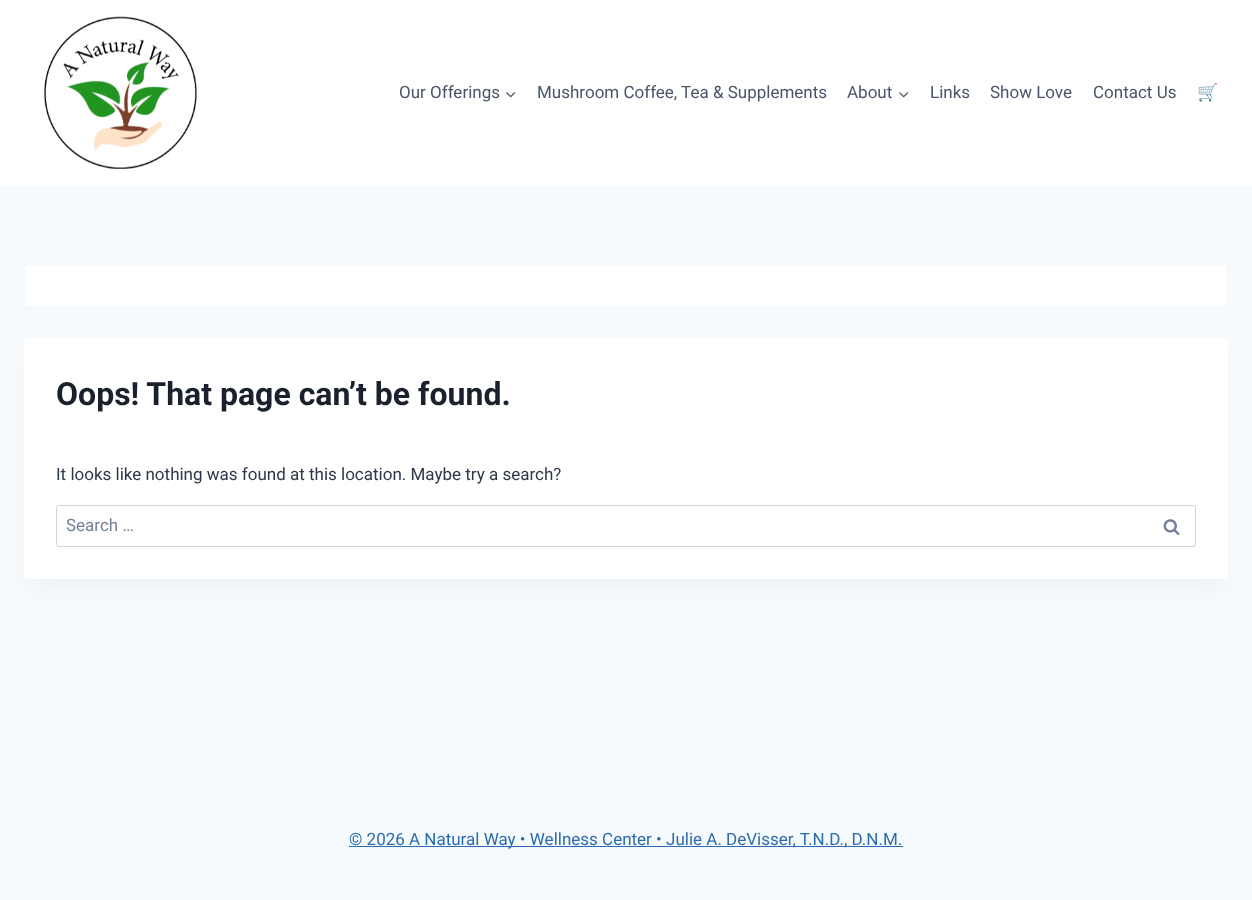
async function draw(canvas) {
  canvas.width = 1252;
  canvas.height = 900;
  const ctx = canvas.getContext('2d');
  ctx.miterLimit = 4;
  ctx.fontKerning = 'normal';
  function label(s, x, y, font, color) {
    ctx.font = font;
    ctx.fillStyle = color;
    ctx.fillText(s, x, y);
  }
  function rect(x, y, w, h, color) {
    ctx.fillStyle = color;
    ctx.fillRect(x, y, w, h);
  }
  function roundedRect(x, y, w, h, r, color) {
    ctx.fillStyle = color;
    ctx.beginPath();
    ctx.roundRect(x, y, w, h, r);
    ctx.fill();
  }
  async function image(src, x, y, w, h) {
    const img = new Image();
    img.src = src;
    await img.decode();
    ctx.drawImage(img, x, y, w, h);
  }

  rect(0, 0, 1252, 900, '#f7fafc');
  rect(0, 0, 1252, 186, '#fff');
  await image('assets/img1.png', 44, 16, 154, 154);
  label('Our Offerings', 399, 98, '17px Roboto', '#4a5568');
  await image('assets/img2.png', 506, 92, 10, 6);
  label('Mushroom Coffee, Tea & Supplements', 537, 98, '17px Roboto', '#4a5568');
  label('About', 847, 98, '17px Roboto', '#4a5568');
  await image('assets/img2.png', 899, 92, 10, 6);
  label('Links', 930, 98, '17px Roboto', '#4a5568');
  label('Show Love', 990, 98, '17px Roboto', '#4a5568');
  label('Contact Us', 1093, 98, '17px Roboto', '#4a5568');
  label('🛒', 1197, 98, '17px Noto Color Emoji', '#4a5568');
  rect(26, 266, 1200, 40, '#fff');
  ctx.fillStyle = '#0000000d';
  ctx.filter = 'blur(12.5px)';
  ctx.beginPath();
  ctx.rect(34, 363, 1184, 221);
  ctx.fill();
  ctx.filter = 'none';
  roundedRect(24, 338, 1204, 241, 4, '#fff');
  label('Oops! That page can’t be found.', 56, 405, 'bold 32px Roboto', '#1a202c');
  label('It looks like nothing was found at this location. Maybe try a search?', 56, 480, '17px Roboto', '#2d3748');
  ctx.beginPath();
  ctx.roundRect(56.5, 505.5, 1139, 41, 2.5);
  ctx.strokeStyle = '#cbd5e0';
  ctx.stroke();
  label('Search …', 66, 531, '17px Roboto', '#718096');
  await image('assets/img3.png', 1163, 519, 17, 16);
  rect(349, 846, 554, 1, '#2b6cb0');
  label('© 2026 A Natural Way • Wellness Center • Julie A. DeVisser, T.N.D., D.N.M.', 349, 845, '17px Roboto', '#2b6cb0');
}

draw(document.querySelector('canvas'));
